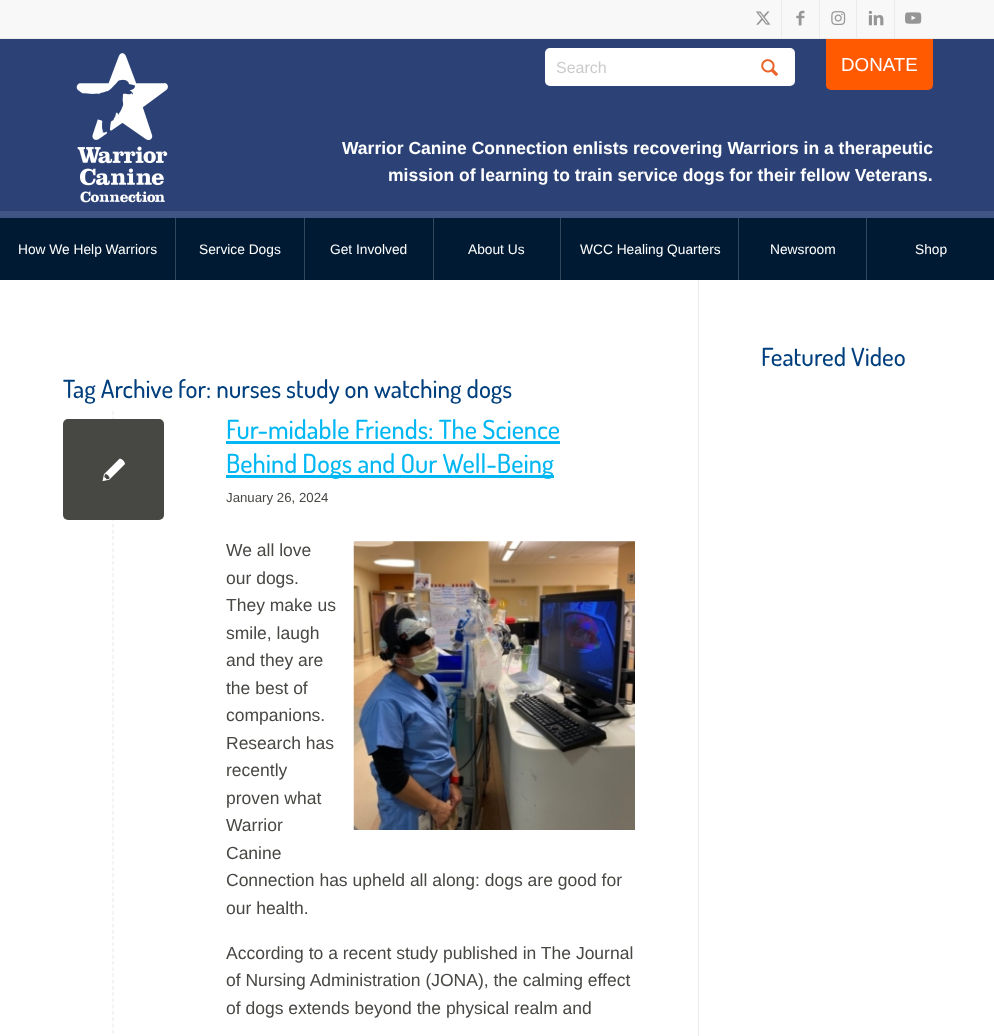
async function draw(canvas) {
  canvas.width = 994;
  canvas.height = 1036;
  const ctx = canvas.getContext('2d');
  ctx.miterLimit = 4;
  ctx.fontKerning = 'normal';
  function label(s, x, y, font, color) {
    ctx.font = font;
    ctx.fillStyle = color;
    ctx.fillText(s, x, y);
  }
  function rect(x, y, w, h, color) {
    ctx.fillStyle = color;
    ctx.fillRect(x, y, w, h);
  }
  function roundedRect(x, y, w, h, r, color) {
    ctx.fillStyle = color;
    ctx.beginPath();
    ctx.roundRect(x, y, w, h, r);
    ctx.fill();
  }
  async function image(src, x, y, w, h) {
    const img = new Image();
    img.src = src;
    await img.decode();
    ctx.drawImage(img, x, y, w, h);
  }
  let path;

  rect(0, 0, 994, 1036, '#fff');
  rect(0, 0, 994, 38, '#f8f8f8');
  rect(0, 39, 994, 172, '#2c4276');
  ctx.fillStyle = '#ff5902';
  ctx.beginPath();
  ctx.roundRect(826, 38, 107, 52, [0, 0, 5, 5]);
  ctx.fill();
  rect(0, 38, 994, 1, '#ebebeb');
  rect(781, 0, 1, 38, '#ebebeb');
  await image('assets/img1.png', 756, 11, 15, 14);
  rect(819, 0, 1, 38, '#ebebeb');
  await image('assets/img2.png', 796, 10, 9, 16);
  rect(856, 0, 1, 38, '#ebebeb');
  await image('assets/img3.png', 831, 11, 15, 14);
  rect(894, 0, 1, 38, '#ebebeb');
  await image('assets/img4.png', 868, 10, 16, 16);
  await image('assets/img5.png', 905, 12, 17, 12);
  await image('assets/img6.png', 76, 53, 92, 150);
  label('DONATE', 841, 71, '18.75px Liberation Sans', '#fff');
  label('Warrior Canine Connection enlists recovering Warriors in a therapeutic', 342, 154, 'bold 17.5px Liberation Sans', '#fff');
  label('mission of learning to train service dogs for their fellow Veterans.', 388, 181, 'bold 17.5px Liberation Sans', '#fff');
  roundedRect(545, 48, 250, 38, 5, '#fff');
  label('Search', 556, 73, '16px Liberation Sans', '#cbcbcb');
  await image('assets/img7.png', 761, 59, 17, 17);
  rect(0, 211, 994, 7, '#415584');
  rect(0, 218, 175, 62, '#001a33');
  label('How We Help Warriors', 18, 254, '13.75px Liberation Sans', '#fff');
  rect(176, 218, 128, 62, '#001a33');
  rect(175, 218, 1, 62, '#33485c');
  label('Service Dogs', 199, 254, '13.75px Liberation Sans', '#fff');
  rect(305, 218, 128, 62, '#001a33');
  rect(304, 218, 1, 62, '#33485c');
  label('Get Involved', 330, 254, '13.75px Liberation Sans', '#fff');
  rect(434, 218, 126, 62, '#001a33');
  rect(433, 218, 1, 62, '#33485c');
  label('About Us', 468, 254, '13.75px Liberation Sans', '#fff');
  rect(561, 218, 177, 62, '#001a33');
  rect(560, 218, 1, 62, '#33485c');
  label('WCC Healing Quarters', 580, 254, '13.75px Liberation Sans', '#fff');
  rect(739, 218, 127, 62, '#001a33');
  rect(738, 218, 1, 62, '#33485c');
  label('Newsroom', 770, 254, '13.75px Liberation Sans', '#fff');
  rect(867, 218, 127, 62, '#001a33');
  rect(866, 218, 1, 62, '#33485c');
  label('Shop', 915, 254, '13.75px Liberation Sans', '#fff');
  label('Featured Video', 761, 366, '500 25px Dosis', '#003f7e');
  rect(698, 280, 1, 756, '#ebebeb');
  label('Tag Archive for: nurses study on watching dogs', 63, 398, '500 25px Dosis', '#003f7e');
  path = new Path2D('M113 411V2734');
  ctx.strokeStyle = '#ebebeb';
  ctx.lineWidth = 1.2;
  ctx.setLineDash([3.75, 2.5]);
  ctx.stroke(path);
  roundedRect(63, 419, 101, 101, 5, '#474743');
  await image('assets/img8.png', 102, 458, 23, 24);
  label('Fur-midable Friends: The Science', 226, 439, '500 26.25px Dosis', '#00b7f3');
  rect(226, 441, 334, 3, '#00b7f3');
  rect(226, 475, 328, 3, '#00b7f3');
  label('Behind Dogs and Our Well-Being', 226, 473, '500 26.25px Dosis', '#00b7f3');
  label('January 26, 2024', 226, 502, '13.25px Liberation Sans', '#474743');
  label('We all love', 226, 556, '17.5px Liberation Sans', '#474743');
  await image('assets/img9.png', 353, 541, 282, 289);
  label('our dogs.', 226, 584, '17.5px Liberation Sans', '#474743');
  label('They make us', 226, 611, '17.5px Liberation Sans', '#474743');
  label('smile, laugh', 226, 639, '17.5px Liberation Sans', '#474743');
  label('and they are', 226, 666, '17.5px Liberation Sans', '#474743');
  label('the best of', 226, 694, '17.5px Liberation Sans', '#474743');
  label('companions.', 226, 721, '17.5px Liberation Sans', '#474743');
  label('Research has', 226, 749, '17.5px Liberation Sans', '#474743');
  label('recently', 226, 776, '17.5px Liberation Sans', '#474743');
  label('proven what', 226, 804, '17.5px Liberation Sans', '#474743');
  label('Warrior', 226, 831, '17.5px Liberation Sans', '#474743');
  label('Canine', 226, 859, '17.5px Liberation Sans', '#474743');
  label('Connection has upheld all along: dogs are good for', 226, 886, '17.5px Liberation Sans', '#474743');
  label('our health.', 226, 914, '17.5px Liberation Sans', '#474743');
  label('According to a recent study published in The Journal', 226, 959, '17.5px Liberation Sans', '#474743');
  label('of Nursing Administration (JONA), the calming effect', 226, 986, '17.5px Liberation Sans', '#474743');
  label('of dogs extends beyond the physical realm and', 226, 1014, '17.5px Liberation Sans', '#474743');
}

draw(document.querySelector('canvas'));
